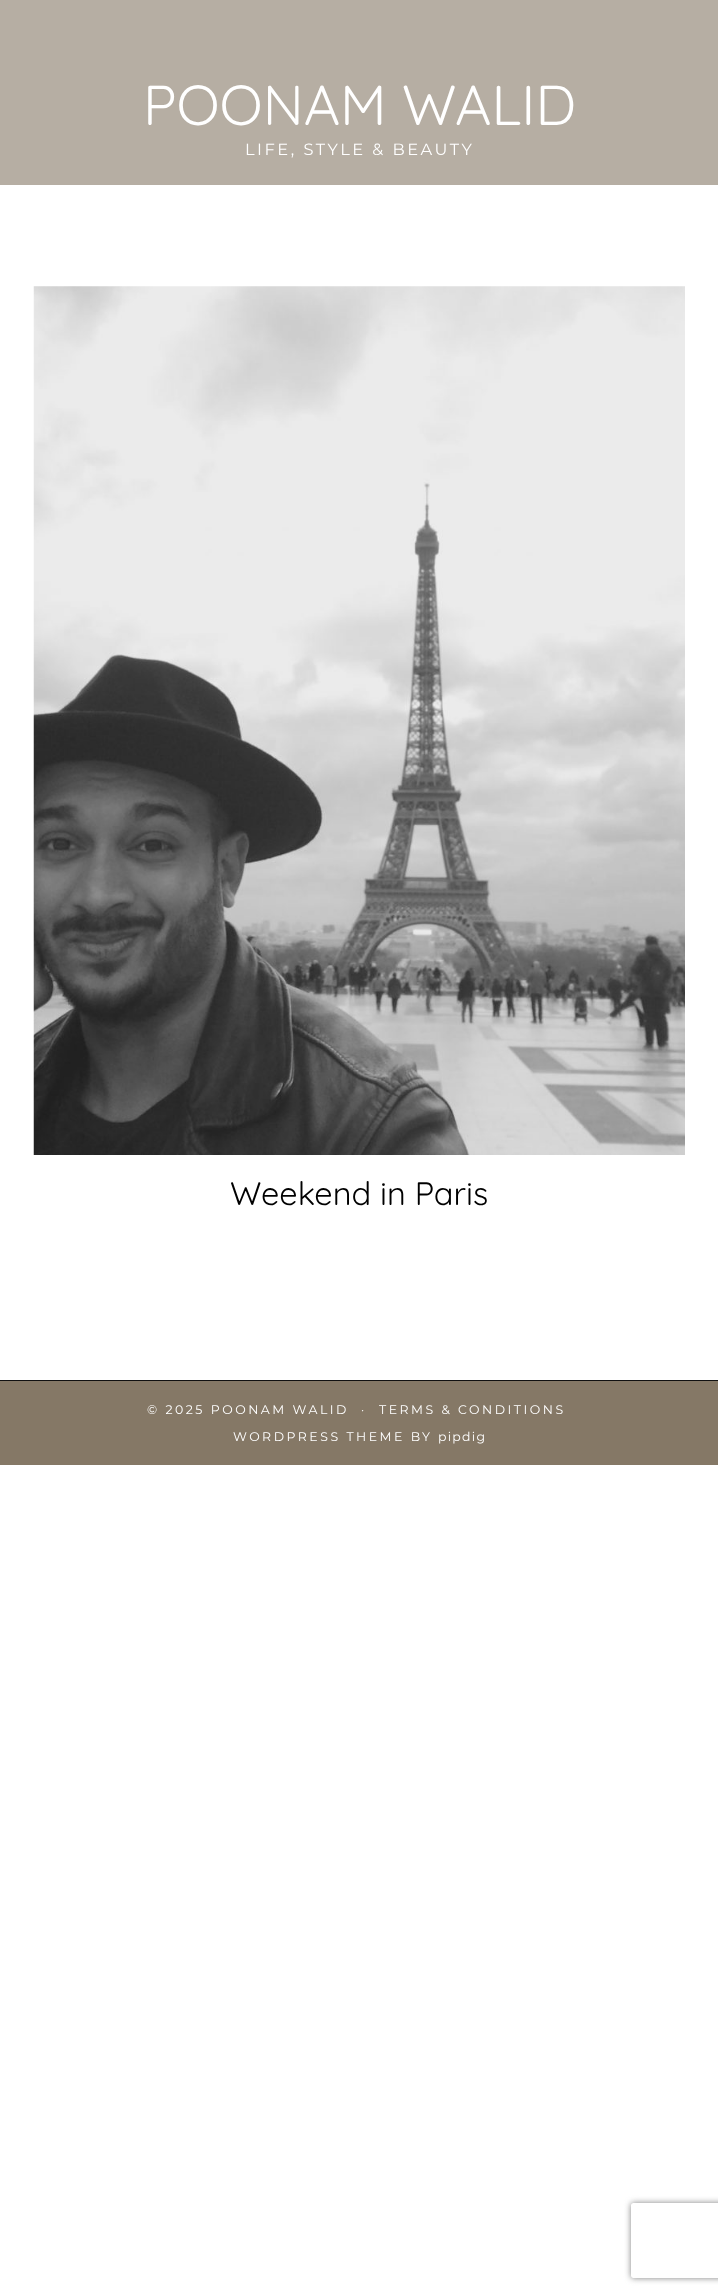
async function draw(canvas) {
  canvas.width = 718;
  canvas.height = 2295;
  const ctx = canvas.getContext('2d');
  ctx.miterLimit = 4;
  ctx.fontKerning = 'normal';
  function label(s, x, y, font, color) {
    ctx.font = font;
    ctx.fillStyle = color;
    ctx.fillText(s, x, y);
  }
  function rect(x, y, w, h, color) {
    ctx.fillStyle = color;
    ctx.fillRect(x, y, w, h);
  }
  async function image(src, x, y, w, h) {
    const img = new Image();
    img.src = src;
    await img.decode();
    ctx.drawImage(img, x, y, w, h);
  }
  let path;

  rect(0, 0, 718, 2295, '#fff');
  rect(0, 0, 718, 185, '#b6aea3');
  label('POONAM WALID', 143, 125, '300 56.25px Quicksand', '#fff');
  ctx.letterSpacing = '2.5px';
  label('LIFE, STYLE & BEAUTY', 245, 155, '100 16.25px Montserrat', '#fff');
  await image('assets/img1.png', 33, 286, 652, 869);
  ctx.letterSpacing = '0px';
  label('Weekend in Paris', 230, 1205, '300 32.5px Quicksand', '#000');
  rect(0, 1380, 718, 1, '#111');
  rect(0, 1381, 718, 84, '#857866');
  ctx.letterSpacing = '2.5px';
  label('© 2025 POONAM WALID', 147, 1414, '100 12.5px Montserrat', '#fff');
  label('·', 361, 1414, '100 12.5px Montserrat', '#fff');
  label('TERMS & CONDITIONS', 379, 1414, '100 12.5px Montserrat', '#fff');
  label('WORDPRESS THEME BY', 233, 1441, '100 12.5px Montserrat', '#fff');
  ctx.letterSpacing = '1.25px';
  label('pipdig', 438, 1441, '100 12.5px Montserrat', '#fff');
  ctx.save();
  path = new Path2D('M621 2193H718V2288H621ZM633.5 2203H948.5C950 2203 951 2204 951 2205.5V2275.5C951 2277 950 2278 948.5 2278H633.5C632 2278 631 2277 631 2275.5V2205.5C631 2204 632 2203 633.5 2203Z');
  ctx.clip(path, 'evenodd');
  ctx.fillStyle = '#808080';
  ctx.filter = 'blur(3px)';
  ctx.beginPath();
  ctx.roundRect(631, 2203, 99, 75, 2.5);
  ctx.fill();
  ctx.filter = 'none';
  ctx.restore();
}

draw(document.querySelector('canvas'));
